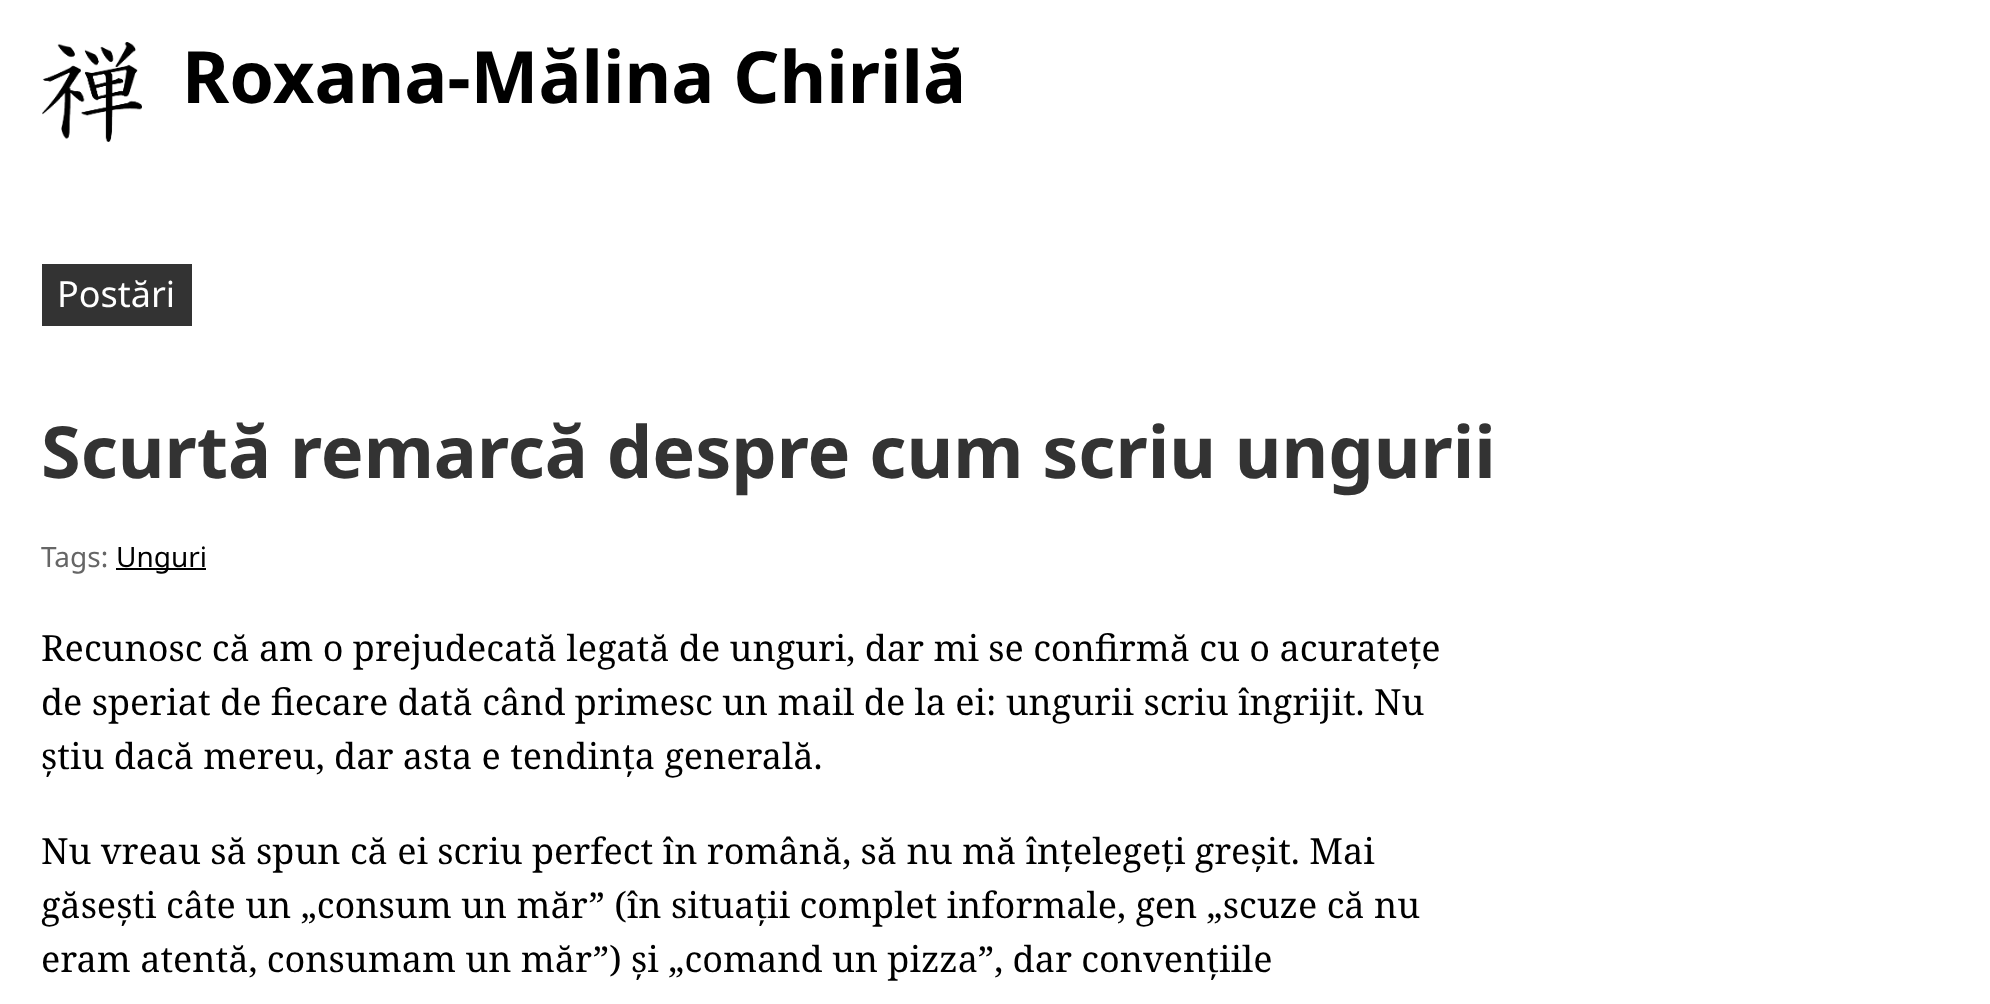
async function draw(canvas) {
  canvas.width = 1990;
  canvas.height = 1004;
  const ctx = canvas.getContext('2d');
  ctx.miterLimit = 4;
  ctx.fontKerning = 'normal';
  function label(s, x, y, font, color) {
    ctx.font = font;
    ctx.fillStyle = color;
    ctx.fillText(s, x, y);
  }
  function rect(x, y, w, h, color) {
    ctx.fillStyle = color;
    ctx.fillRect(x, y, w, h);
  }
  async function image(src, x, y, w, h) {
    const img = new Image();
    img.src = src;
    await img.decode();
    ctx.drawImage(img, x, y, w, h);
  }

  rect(0, 0, 1990, 1004, '#fff');
  await image('assets/img1.png', 42, 42, 100, 100);
  label('Roxana-Mălina Chirilă', 182, 103, 'bold 72px Noto Sans', '#000');
  rect(42, 264, 150, 62, '#333');
  label('Postări', 57, 307, '36px Noto Sans', '#fff');
  label('Scurtă remarcă despre cum scriu ungurii', 41, 478, 'bold 72px Noto Sans', '#333');
  label('Tags:', 41, 567, '28px Noto Sans', '#666');
  rect(116, 568, 90, 2, '#000');
  label('Unguri', 116, 567, '28px Noto Sans', '#000');
  label('Recunosc că am o prejudecată legată de unguri, dar mi se confirmă cu o acuratețe', 41, 661, '36px Noto Serif', '#000');
  label('de speriat de fiecare dată când primesc un mail de la ei: ungurii scriu îngrijit. Nu', 41, 715, '36px Noto Serif', '#000');
  label('știu dacă mereu, dar asta e tendința generală.', 41, 769, '36px Noto Serif', '#000');
  label('Nu vreau să spun că ei scriu perfect în română, să nu mă înțelegeți greșit. Mai', 41, 864, '36px Noto Serif', '#000');
  label('găsești câte un „consum un măr” (în situații complet informale, gen „scuze că nu', 41, 918, '36px Noto Serif', '#000');
  label('eram atentă, consumam un măr”) și „comand un pizza”, dar convențiile', 41, 972, '36px Noto Serif', '#000');
}

draw(document.querySelector('canvas'));
